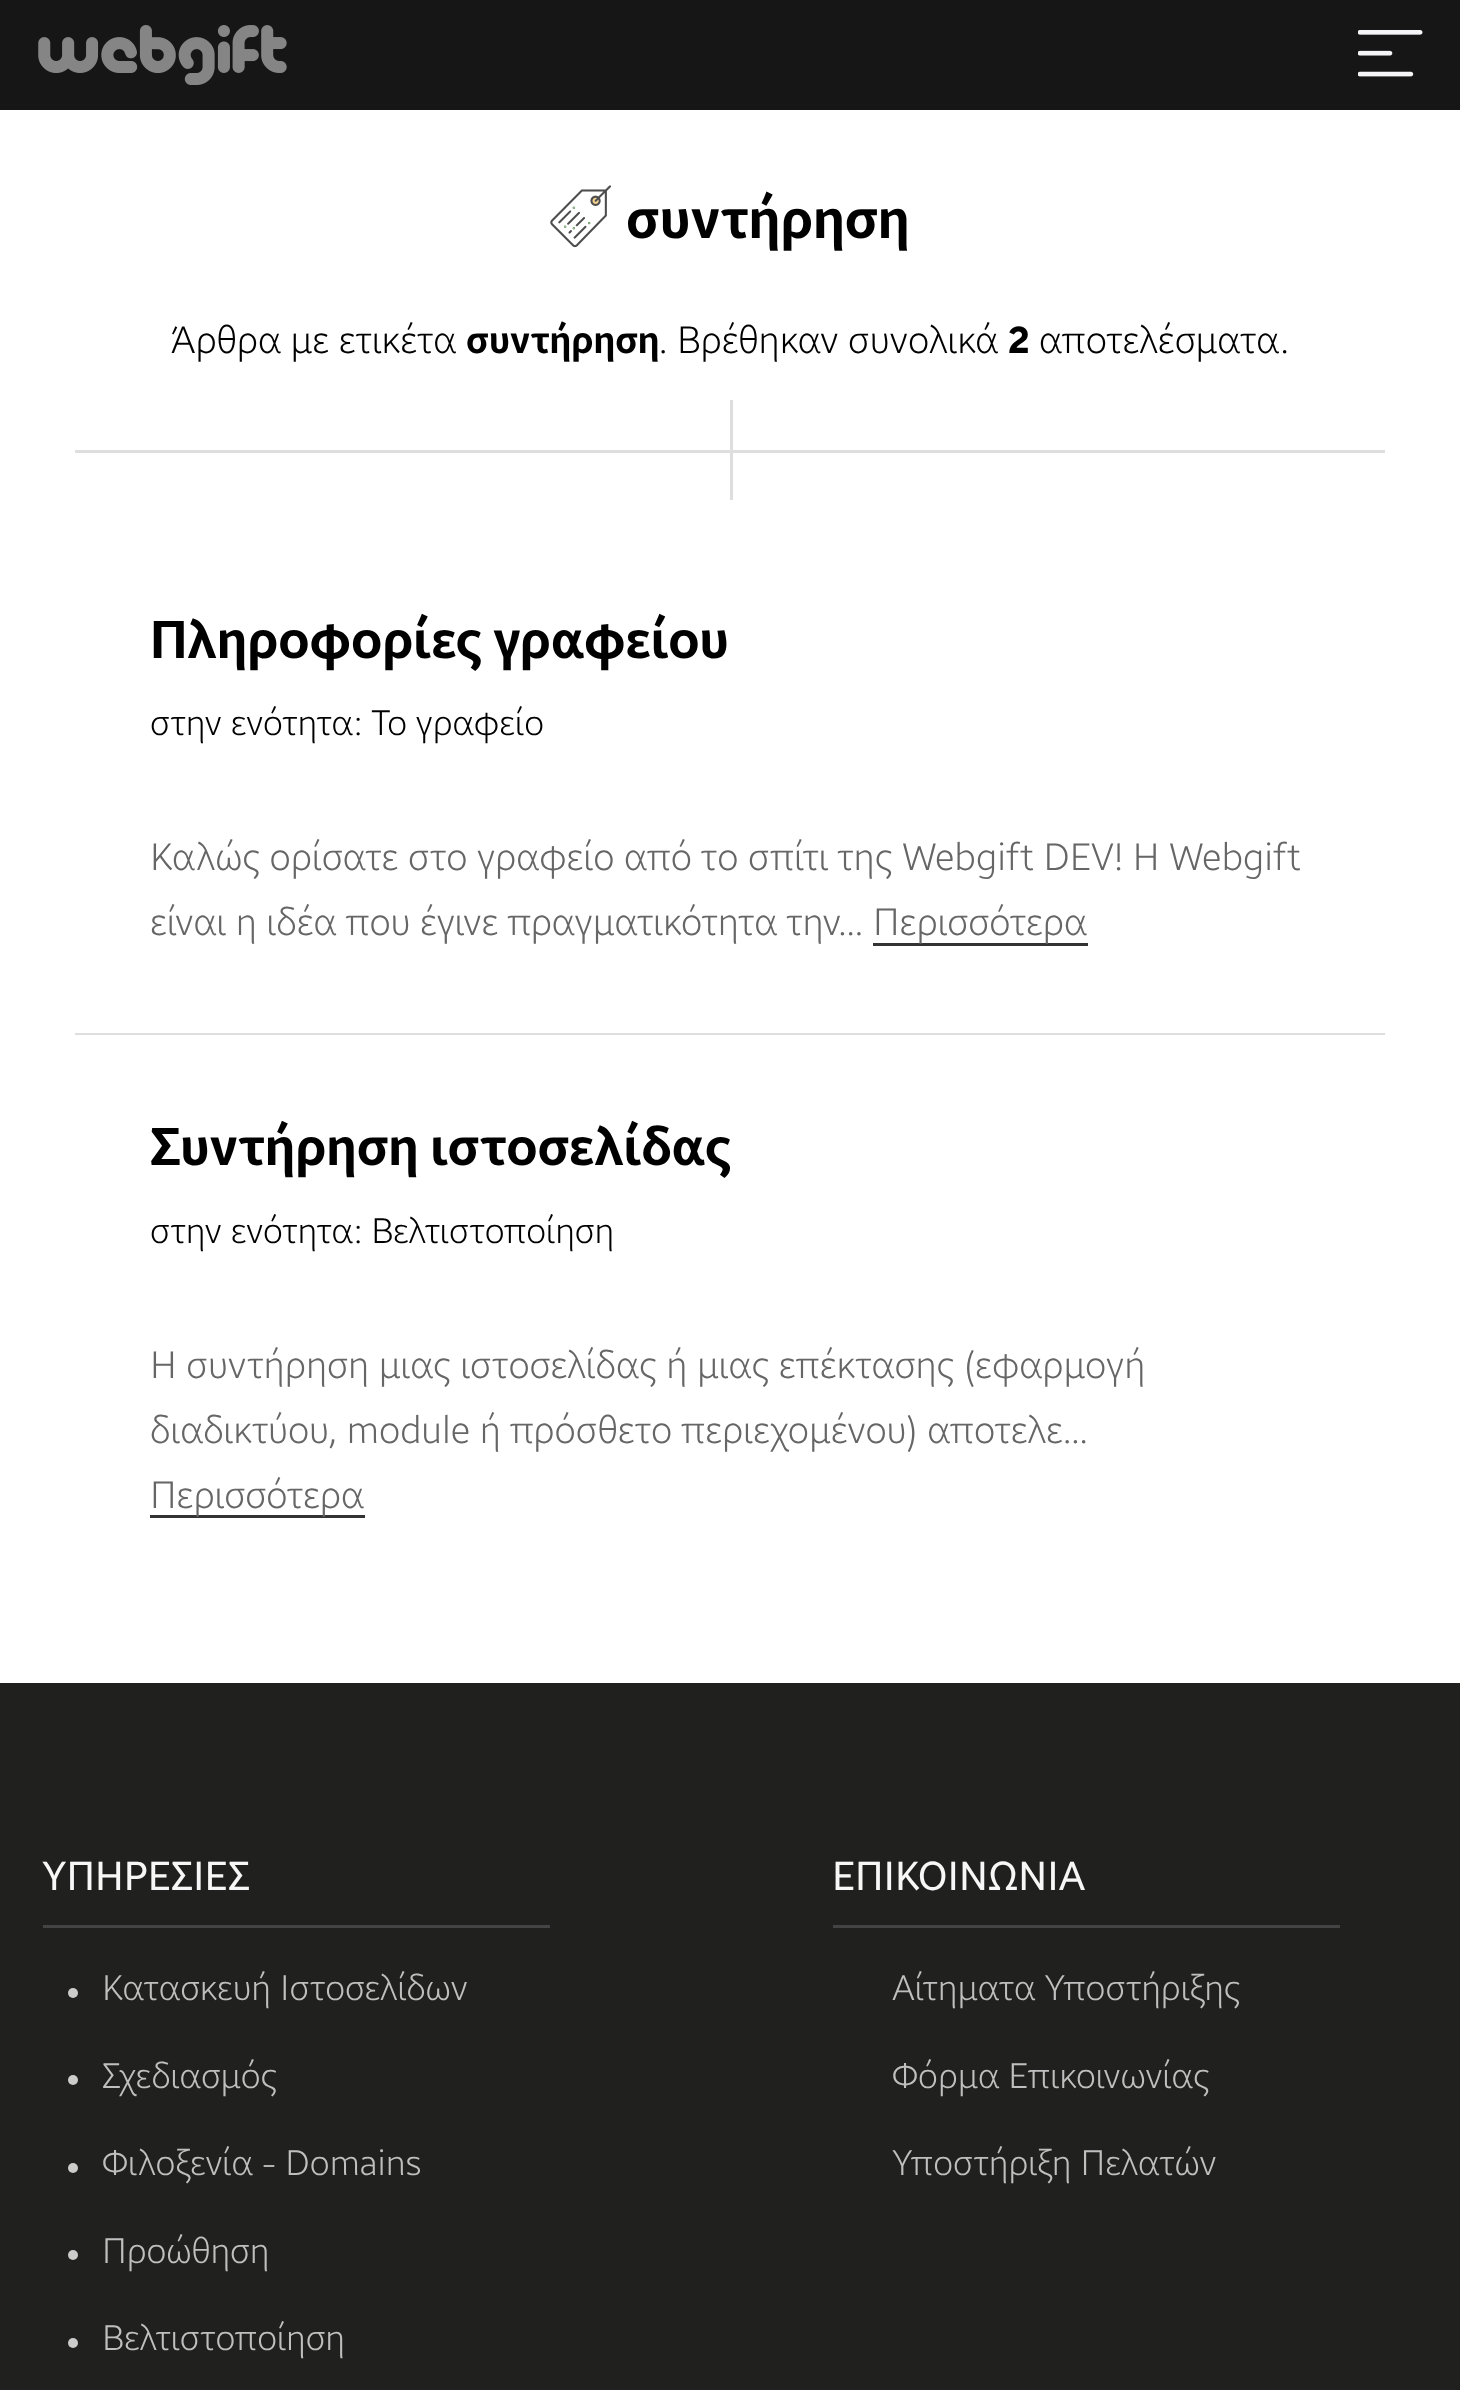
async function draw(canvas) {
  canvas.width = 1460;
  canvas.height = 2390;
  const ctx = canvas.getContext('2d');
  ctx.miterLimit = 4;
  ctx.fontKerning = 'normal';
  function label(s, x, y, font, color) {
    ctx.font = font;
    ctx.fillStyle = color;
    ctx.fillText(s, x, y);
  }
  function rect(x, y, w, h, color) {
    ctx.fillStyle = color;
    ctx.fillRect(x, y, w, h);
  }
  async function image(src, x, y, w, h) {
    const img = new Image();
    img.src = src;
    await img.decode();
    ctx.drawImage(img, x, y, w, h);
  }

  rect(0, 0, 1460, 2390, '#fff');
  rect(0, 0, 1460, 110, '#161617');
  await image('assets/img1.png', 38, 25, 249, 60);
  await image('assets/img2.png', 1358, 30, 65, 47);
  await image('assets/img3.png', 550, 185, 61, 63);
  label('συντήρηση', 626, 238, 'bold 55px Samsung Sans', '#000');
  rect(75, 450, 1310, 3, '#dedede');
  label('Άρθρα με ετικέτα', 171, 353, '300 37.5px Samsung Sans', '#000');
  label('συντήρηση', 466, 353, 'bold 37.5px Samsung Sans', '#000');
  label('. Βρέθηκαν συνολικά', 659, 353, '300 37.5px Samsung Sans', '#000');
  label('2', 1008, 353, 'bold 37.5px Samsung Sans', '#000');
  label('αποτελέσματα.', 1039, 353, '300 37.5px Samsung Sans', '#000');
  rect(730, 400, 3, 100, '#dedede');
  rect(75, 1033, 1310, 2, '#dedede');
  label('Πληροφορίες γραφείου', 150, 658, 'bold 52.5px Samsung Sans', '#000');
  label('στην ενότητα: Το γραφείο', 150, 735, '300 35px Samsung Sans', '#000');
  label('Καλώς ορίσατε στο γραφείο από το σπίτι της Webgift DEV! H Webgift', 150, 870, '300 37.5px Samsung Sans', '#666');
  label('είναι η ιδέα που έγινε πραγματικότητα την...', 150, 935, '300 37.5px Samsung Sans', '#666');
  rect(873, 943, 215, 3, '#333');
  label('Περισσότερα', 873, 935, '300 37.5px Samsung Sans', '#666');
  label('Συντήρηση ιστοσελίδας', 150, 1165, 'bold 52.5px Samsung Sans', '#000');
  label('στην ενότητα: Βελτιστοποίηση', 150, 1243, '300 35px Samsung Sans', '#000');
  label('Η συντήρηση μιας ιστοσελίδας ή μιας επέκτασης (εφαρμογή', 150, 1378, '300 37.5px Samsung Sans', '#666');
  label('διαδικτύου, module ή πρόσθετο περιεχομένου) αποτελε...', 150, 1443, '300 37.5px Samsung Sans', '#666');
  rect(150, 1515, 215, 3, '#333');
  label('Περισσότερα', 150, 1508, '300 37.5px Samsung Sans', '#666');
  rect(0, 1683, 1460, 707, '#20201f');
  rect(43, 1925, 507, 3, '#444');
  label('ΥΠΗΡΕΣΙΕΣ', 42, 1890, '40px Samsung Sans', '#f7f7f7');
  ctx.fillStyle = '#ccc';
  ctx.beginPath();
  ctx.arc(73, 1993, 5, 0, 2 * Math.PI);
  ctx.fill();
  label('Κατασκευή Ιστοσελίδων', 102, 2000, '300 35px Samsung Sans', '#bfbfbf');
  ctx.fillStyle = '#ccc';
  ctx.beginPath();
  ctx.arc(73, 2080, 5, 0, 2 * Math.PI);
  ctx.fill();
  label('Σχεδιασμός', 102, 2088, '300 35px Samsung Sans', '#bfbfbf');
  ctx.fillStyle = '#ccc';
  ctx.beginPath();
  ctx.arc(73, 2168, 5, 0, 2 * Math.PI);
  ctx.fill();
  label('Φιλοξενία - Domains', 102, 2175, '300 35px Samsung Sans', '#bfbfbf');
  ctx.fillStyle = '#ccc';
  ctx.beginPath();
  ctx.arc(73, 2255, 5, 0, 2 * Math.PI);
  ctx.fill();
  label('Προώθηση', 102, 2263, '300 35px Samsung Sans', '#bfbfbf');
  ctx.fillStyle = '#ccc';
  ctx.beginPath();
  ctx.arc(73, 2343, 5, 0, 2 * Math.PI);
  ctx.fill();
  label('Βελτιστοποίηση', 102, 2350, '300 35px Samsung Sans', '#bfbfbf');
  rect(833, 1925, 507, 3, '#444');
  label('ΕΠΙΚΟΙΝΩΝΙΑ', 832, 1890, '40px Samsung Sans', '#f7f7f7');
  label('Αίτηματα Υποστήριξης', 892, 2000, '300 35px Samsung Sans', '#bfbfbf');
  label('Φόρμα Επικοινωνίας', 892, 2088, '300 35px Samsung Sans', '#bfbfbf');
  label('Υποστήριξη Πελατών', 892, 2175, '300 35px Samsung Sans', '#bfbfbf');
}

draw(document.querySelector('canvas'));
